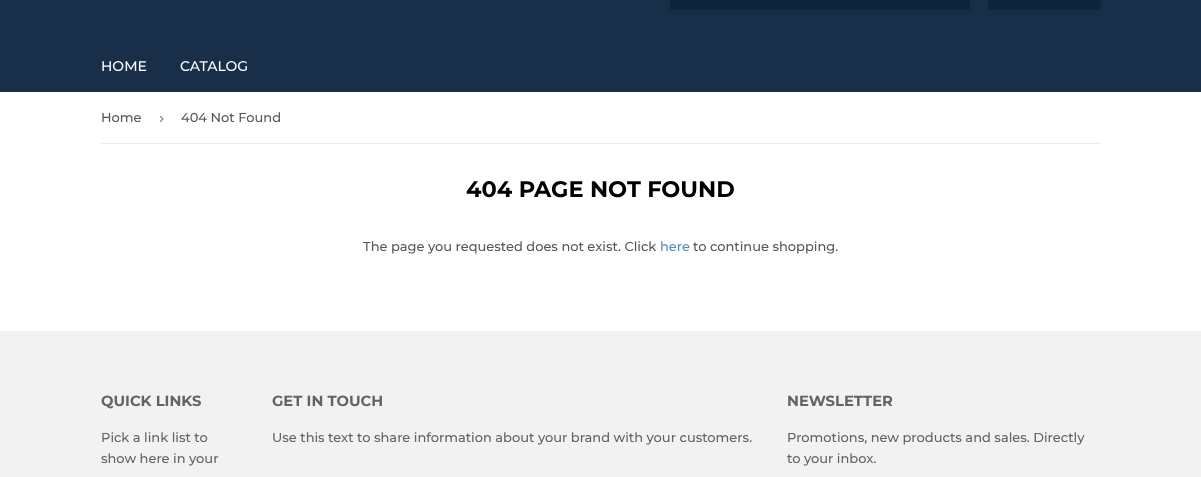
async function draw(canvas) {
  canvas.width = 1201;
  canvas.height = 477;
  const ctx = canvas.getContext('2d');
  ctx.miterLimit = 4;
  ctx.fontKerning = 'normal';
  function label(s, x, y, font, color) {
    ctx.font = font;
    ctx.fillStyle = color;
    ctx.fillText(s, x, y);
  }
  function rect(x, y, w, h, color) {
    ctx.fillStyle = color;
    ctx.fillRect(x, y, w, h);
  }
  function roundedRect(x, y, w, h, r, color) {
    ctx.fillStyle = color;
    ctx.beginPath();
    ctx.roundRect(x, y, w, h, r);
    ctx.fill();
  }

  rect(0, 0, 1201, 477, '#fff');
  rect(0, 0, 1201, 92, '#182e49');
  roundedRect(670, -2, 300, 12, 2, '#0f243d');
  roundedRect(988, -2, 113, 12, 2, '#0f243d');
  label('HOME', 101, 71, '500 14px Montserrat', '#fff');
  label('CATALOG', 180, 71, '500 14px Montserrat', '#fff');
  rect(101, 143, 1000, 1, '#ececec');
  label('Home', 101, 122, '500 13px Montserrat', '#585858');
  label('›', 159, 123, '15px Liberation Sans', '#767676');
  label('404 Not Found', 181, 122, '500 13px Montserrat', '#585858');
  label('404 PAGE NOT FOUND', 466, 197, 'bold 22.5px Montserrat', '#000');
  label('The page you requested does not exist. Click', 363, 251, '500 13px Montserrat', '#585858');
  label('here', 660, 251, '500 13px Montserrat', '#528ec1');
  label('to continue shopping.', 693, 251, '500 13px Montserrat', '#585858');
  rect(0, 331, 1201, 146, '#f2f2f2');
  label('QUICK LINKS', 101, 406, 'bold 14.75px Montserrat', '#636363');
  label('Pick a link list to', 101, 442, '500 13px Montserrat', '#636363');
  label('show here in your', 101, 463, '500 13px Montserrat', '#636363');
  label('GET IN TOUCH', 272, 406, 'bold 14.75px Montserrat', '#636363');
  label('Use this text to share information about your brand with your customers.', 272, 442, '500 13px Montserrat', '#636363');
  label('NEWSLETTER', 787, 406, 'bold 14.75px Montserrat', '#636363');
  label('Promotions, new products and sales. Directly', 787, 442, '500 13px Montserrat', '#636363');
  label('to your inbox.', 787, 463, '500 13px Montserrat', '#636363');
}

draw(document.querySelector('canvas'));
